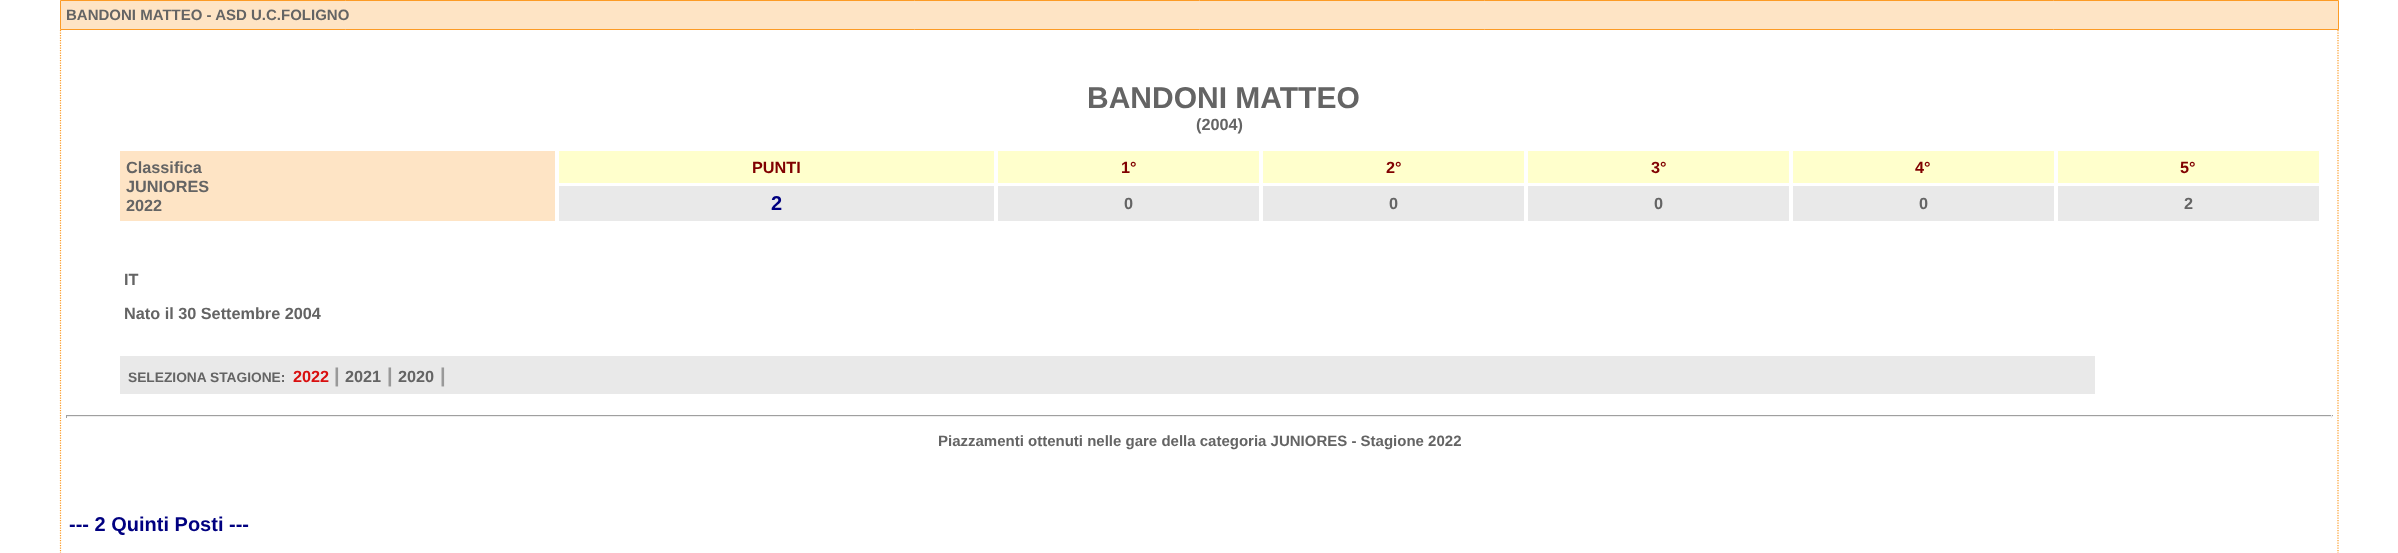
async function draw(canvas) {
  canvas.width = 2398;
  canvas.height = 553;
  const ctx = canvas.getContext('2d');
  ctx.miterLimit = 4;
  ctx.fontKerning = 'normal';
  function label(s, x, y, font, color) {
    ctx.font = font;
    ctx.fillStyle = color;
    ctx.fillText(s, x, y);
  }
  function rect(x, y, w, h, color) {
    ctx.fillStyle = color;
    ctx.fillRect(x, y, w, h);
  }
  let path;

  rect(0, 0, 2398, 553, '#fff');
  ctx.fillStyle = '#fee4c5';
  ctx.beginPath();
  ctx.rect(60.5, 0.5, 2278, 29);
  ctx.fill();
  ctx.strokeStyle = '#fc9b26';
  ctx.stroke();
  label('BANDONI MATTEO - ASD U.C.FOLIGNO', 66, 20, 'bold 15px Liberation Sans', '#646464');
  path = new Path2D('M2338 30V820');
  ctx.lineWidth = 1.2;
  ctx.setLineDash([1.25, 1.25]);
  ctx.stroke(path);
  path = new Path2D('M60.5 30V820');
  ctx.stroke(path);
  label('BANDONI MATTEO', 1087, 108, 'bold 30px Liberation Sans', '#646464');
  label('(2004)', 1196, 130, 'bold 16.25px Liberation Sans', '#646464');
  rect(120, 151, 435, 70, '#fee4c5');
  label('Classifica', 126, 173, 'bold 16.25px Liberation Sans', '#646464');
  label('JUNIORES', 126, 192, 'bold 16.25px Liberation Sans', '#646464');
  label('2022', 126, 211, 'bold 16.25px Liberation Sans', '#646464');
  rect(559, 151, 435, 32, '#ffc');
  label('PUNTI', 752, 173, 'bold 16.25px Liberation Sans', '#800000');
  rect(998, 151, 261, 32, '#ffc');
  label('1°', 1121, 173, 'bold 16.25px Liberation Sans', '#800000');
  rect(1263, 151, 261, 32, '#ffc');
  label('2°', 1386, 173, 'bold 16.25px Liberation Sans', '#800000');
  rect(1528, 151, 261, 32, '#ffc');
  label('3°', 1651, 173, 'bold 16.25px Liberation Sans', '#800000');
  rect(1793, 151, 261, 32, '#ffc');
  label('4°', 1915, 173, 'bold 16.25px Liberation Sans', '#800000');
  rect(2058, 151, 261, 32, '#ffc');
  label('5°', 2180, 173, 'bold 16.25px Liberation Sans', '#800000');
  rect(559, 186, 435, 35, '#e9e9e9');
  label('2', 771, 210, 'bold 20px Liberation Sans', '#000080');
  rect(998, 186, 261, 35, '#e9e9e9');
  label('0', 1124, 209, 'bold 16.25px Liberation Sans', '#646464');
  rect(1263, 186, 261, 35, '#e9e9e9');
  label('0', 1389, 209, 'bold 16.25px Liberation Sans', '#646464');
  rect(1528, 186, 261, 35, '#e9e9e9');
  label('0', 1654, 209, 'bold 16.25px Liberation Sans', '#646464');
  rect(1793, 186, 261, 35, '#e9e9e9');
  label('0', 1919, 209, 'bold 16.25px Liberation Sans', '#646464');
  rect(2058, 186, 261, 35, '#e9e9e9');
  label('2', 2184, 209, 'bold 16.25px Liberation Sans', '#646464');
  label('IT', 124, 285, 'bold 16.25px Liberation Sans', '#646464');
  label('Nato il 30 Settembre 2004', 124, 319, 'bold 16.25px Liberation Sans', '#646464');
  rect(120, 356, 1975, 38, '#e9e9e9');
  label('SELEZIONA STAGIONE:', 128, 382, 'bold 13.75px Liberation Sans', '#646464');
  label('2022', 293, 382, 'bold 16.25px Liberation Sans', '#d90f0f');
  label('|', 334, 382, 'bold 20px Liberation Sans', '#999');
  label('2021', 345, 382, 'bold 16.25px Liberation Sans', '#646464');
  label('|', 387, 382, 'bold 20px Liberation Sans', '#999');
  label('2020', 398, 382, 'bold 16.25px Liberation Sans', '#646464');
  label('|', 440, 382, 'bold 20px Liberation Sans', '#999');
  rect(66, 415, 2267, 1, '#9f9f9f');
  rect(2331, 415, 1, 3, '#eee');
  rect(66, 416, 2267, 1, '#eee');
  rect(66, 415, 1, 3, '#9f9f9f');
  label('Piazzamenti ottenuti nelle gare della categoria JUNIORES - Stagione 2022', 938, 446, 'bold 15px Liberation Sans', '#646464');
  label('--- 2 Quinti Posti ---', 69, 531, 'bold 20px Liberation Sans', '#000080');
}

draw(document.querySelector('canvas'));
